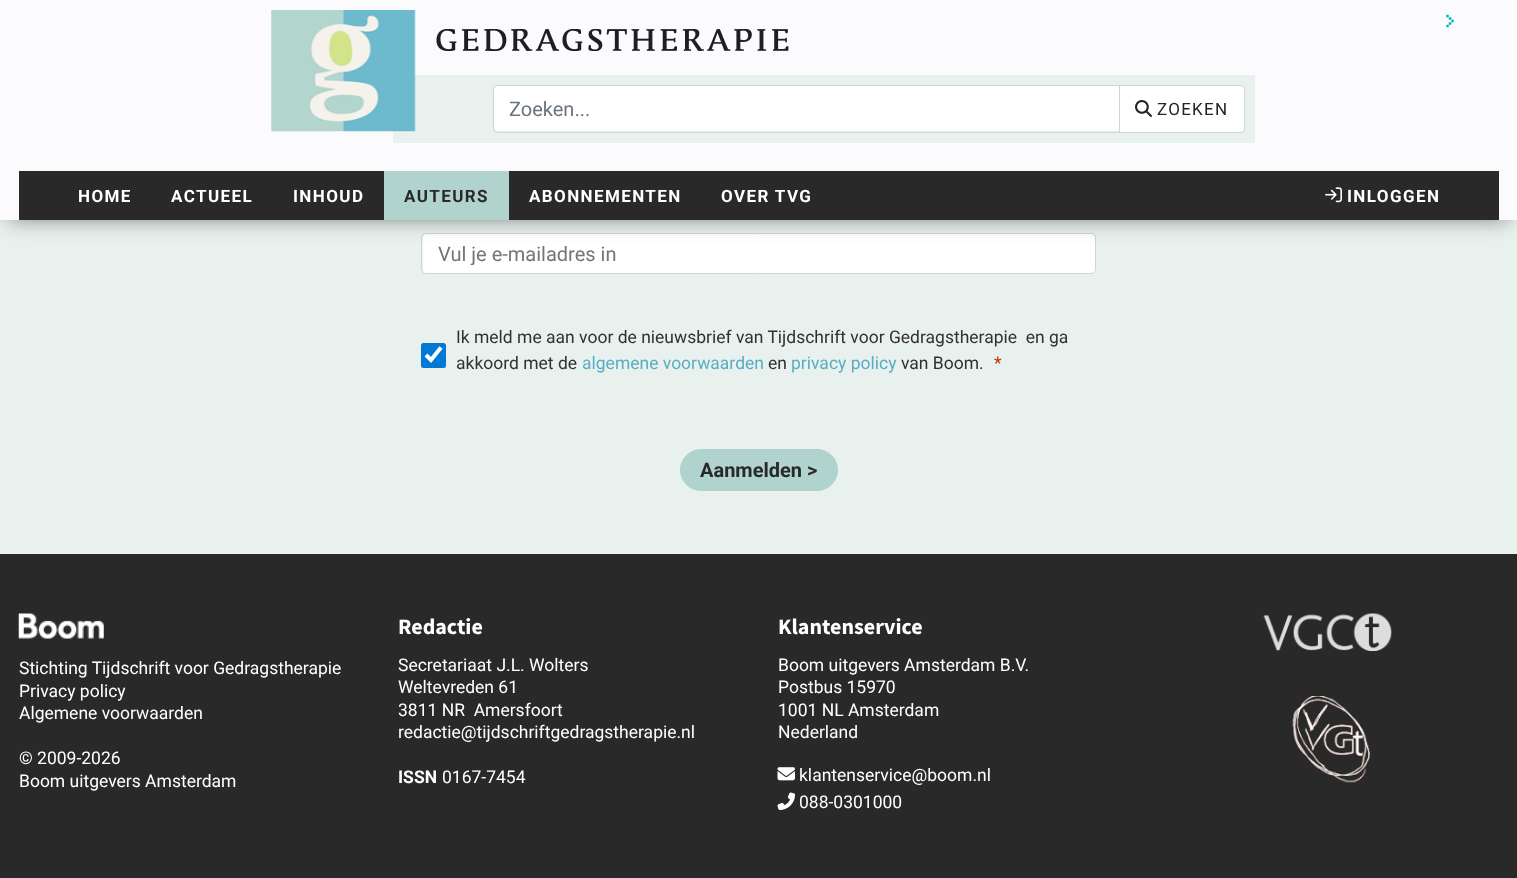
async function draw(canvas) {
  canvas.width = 1517;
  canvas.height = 878;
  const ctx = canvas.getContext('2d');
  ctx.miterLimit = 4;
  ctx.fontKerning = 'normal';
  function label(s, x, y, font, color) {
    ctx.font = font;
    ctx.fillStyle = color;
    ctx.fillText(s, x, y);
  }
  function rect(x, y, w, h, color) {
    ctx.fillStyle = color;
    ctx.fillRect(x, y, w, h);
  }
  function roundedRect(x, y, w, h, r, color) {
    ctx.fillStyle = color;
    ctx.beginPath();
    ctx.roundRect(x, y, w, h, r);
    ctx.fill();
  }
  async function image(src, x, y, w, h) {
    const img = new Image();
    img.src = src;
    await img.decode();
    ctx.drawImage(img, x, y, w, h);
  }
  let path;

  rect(0, 0, 1517, 878, '#e9f1ee');
  roundedRect(423, 234, 672, 39, 4, '#fff');
  ctx.beginPath();
  ctx.roundRect(421.5, 233.5, 674, 40, 4.5);
  ctx.strokeStyle = '#ced4da';
  ctx.stroke();
  ctx.fillStyle = '#0000007a';
  ctx.filter = 'blur(10.5px)';
  ctx.beginPath();
  ctx.rect(9, 16, 1500, 203);
  ctx.fill();
  ctx.filter = 'none';
  rect(0, 0, 1517, 220, '#fbfbfe');
  await image('assets/img1.png', 1446, 14, 8, 14);
  rect(393, 75, 862, 68, '#e9f1ee');
  await image('assets/img2.png', 271, 10, 145, 122);
  await image('assets/img3.png', 436, 29, 353, 22);
  ctx.fillStyle = '#fff';
  ctx.beginPath();
  ctx.roundRect(494, 86, 625, 45, [4, 0, 0, 4]);
  ctx.fill();
  ctx.beginPath();
  ctx.roundRect(493.5, 85.5, 626, 47, [4.5, 0, 0, 4.5]);
  ctx.stroke();
  label('Zoeken...', 509, 116, '20px Roboto', '#6c757d');
  ctx.fillStyle = '#fff';
  ctx.beginPath();
  ctx.roundRect(1119.5, 85.5, 125, 47, [0, 3.5, 3.5, 0]);
  ctx.fill();
  ctx.stroke();
  await image('assets/img4.png', 1135, 100, 17, 17);
  ctx.letterSpacing = '1.25px';
  label('ZOEKEN', 1157, 115, '17px Roboto', '#212529');
  rect(19, 171, 1480, 49, '#292929');
  ctx.letterSpacing = '1.4px';
  label('HOME', 78, 202, 'bold 17px Roboto', '#fff');
  label('ACTUEEL', 171, 202, 'bold 17px Roboto', '#fff');
  label('INHOUD', 293, 202, 'bold 17px Roboto', '#fff');
  rect(384, 171, 125, 49, '#b1d3cd');
  label('AUTEURS', 404, 202, 'bold 17px Roboto', '#292929');
  label('ABONNEMENTEN', 529, 202, 'bold 17px Roboto', '#fff');
  label('OVER TVG', 721, 202, 'bold 17px Roboto', '#fff');
  await image('assets/img5.png', 1325, 187, 17, 16);
  label('INLOGGEN', 1347, 202, 'bold 17px Roboto', '#fff');
  ctx.save();
  ctx.beginPath();
  ctx.rect(438, 241, 642, 24);
  ctx.clip();
  ctx.letterSpacing = '0px';
  label('Vul je e-mailadres in', 438, 261, '20px Roboto', '#757575');
  ctx.restore();
  roundedRect(421, 343, 25, 25, 2.5, '#0078d4');
  path = new Path2D('M426 355L431 360L441 347.5');
  ctx.strokeStyle = '#fff';
  ctx.lineWidth = 4;
  ctx.stroke(path);
  ctx.letterSpacing = '0px';
  label('Ik meld me aan voor de nieuwsbrief van Tijdschrift voor Gedragstherapie  en ga', 456, 343, '17.5px Roboto', '#323130');
  label('akkoord met de', 456, 369, '17.5px Roboto', '#323130');
  label('algemene voorwaarden', 582, 369, '17.5px Roboto', '#58aec3');
  label('en', 768, 369, '17.5px Roboto', '#323130');
  label('privacy policy', 791, 369, '17.5px Roboto', '#58aec3');
  label('van Boom.', 901, 369, '17.5px Roboto', '#323130');
  label('*', 994, 369, '17.5px Roboto', '#c33400');
  ctx.fillStyle = '#b1d3cd';
  ctx.beginPath();
  ctx.roundRect(680.5, 449.5, 157, 41, 20.5);
  ctx.fill();
  ctx.strokeStyle = '#b1d3cd';
  ctx.lineWidth = 1;
  ctx.stroke();
  label('Aanmelden >', 700, 477, 'bold 20px Roboto', '#292929');
  rect(0, 554, 1517, 324, '#292929');
  await image('assets/img6.png', 18, 613, 86, 26);
  label('Stichting Tijdschrift voor Gedragstherapie', 19, 674, '17.5px Roboto', '#fff');
  label('Privacy policy', 19, 697, '17.5px Roboto', '#fff');
  label('Algemene voorwaarden', 19, 719, '17.5px Roboto', '#fff');
  label('© 2009-2026', 19, 764, '17.5px Roboto', '#fff');
  label('Boom uitgevers Amsterdam', 19, 787, '17.5px Roboto', '#fff');
  label('Redactie', 398, 634, 'bold 22px Source Sans Pro', '#fff');
  label('Secretariaat J.L. Wolters', 398, 671, '17.5px Roboto', '#fff');
  label('Weltevreden 61', 398, 693, '17.5px Roboto', '#fff');
  label('3811 NR  Amersfoort', 398, 716, '17.5px Roboto', '#fff');
  label('redactie@tijdschriftgedragstherapie.nl', 398, 738, '17.5px Roboto', '#fff');
  label('ISSN', 398, 783, 'bold 17.5px Roboto', '#fff');
  label('0167-7454', 442, 783, '17.5px Roboto', '#fff');
  label('Klantenservice', 778, 634, 'bold 22px Source Sans Pro', '#fff');
  label('Boom uitgevers Amsterdam B.V.', 778, 671, '17.5px Roboto', '#fff');
  label('Postbus 15970', 778, 693, '17.5px Roboto', '#fff');
  label('1001 NL Amsterdam', 778, 716, '17.5px Roboto', '#fff');
  label('Nederland', 778, 738, '17.5px Roboto', '#fff');
  await image('assets/img7.png', 777, 767, 18, 14);
  label('klantenservice@boom.nl', 799, 781, '17.5px Roboto', '#fff');
  await image('assets/img8.png', 777, 792, 18, 18);
  label('088-0301000', 799, 808, '17.5px Roboto', '#fff');
  await image('assets/img9.png', 1263, 613, 129, 38);
  await image('assets/img10.png', 1292, 696, 78, 87);
}

draw(document.querySelector('canvas'));
